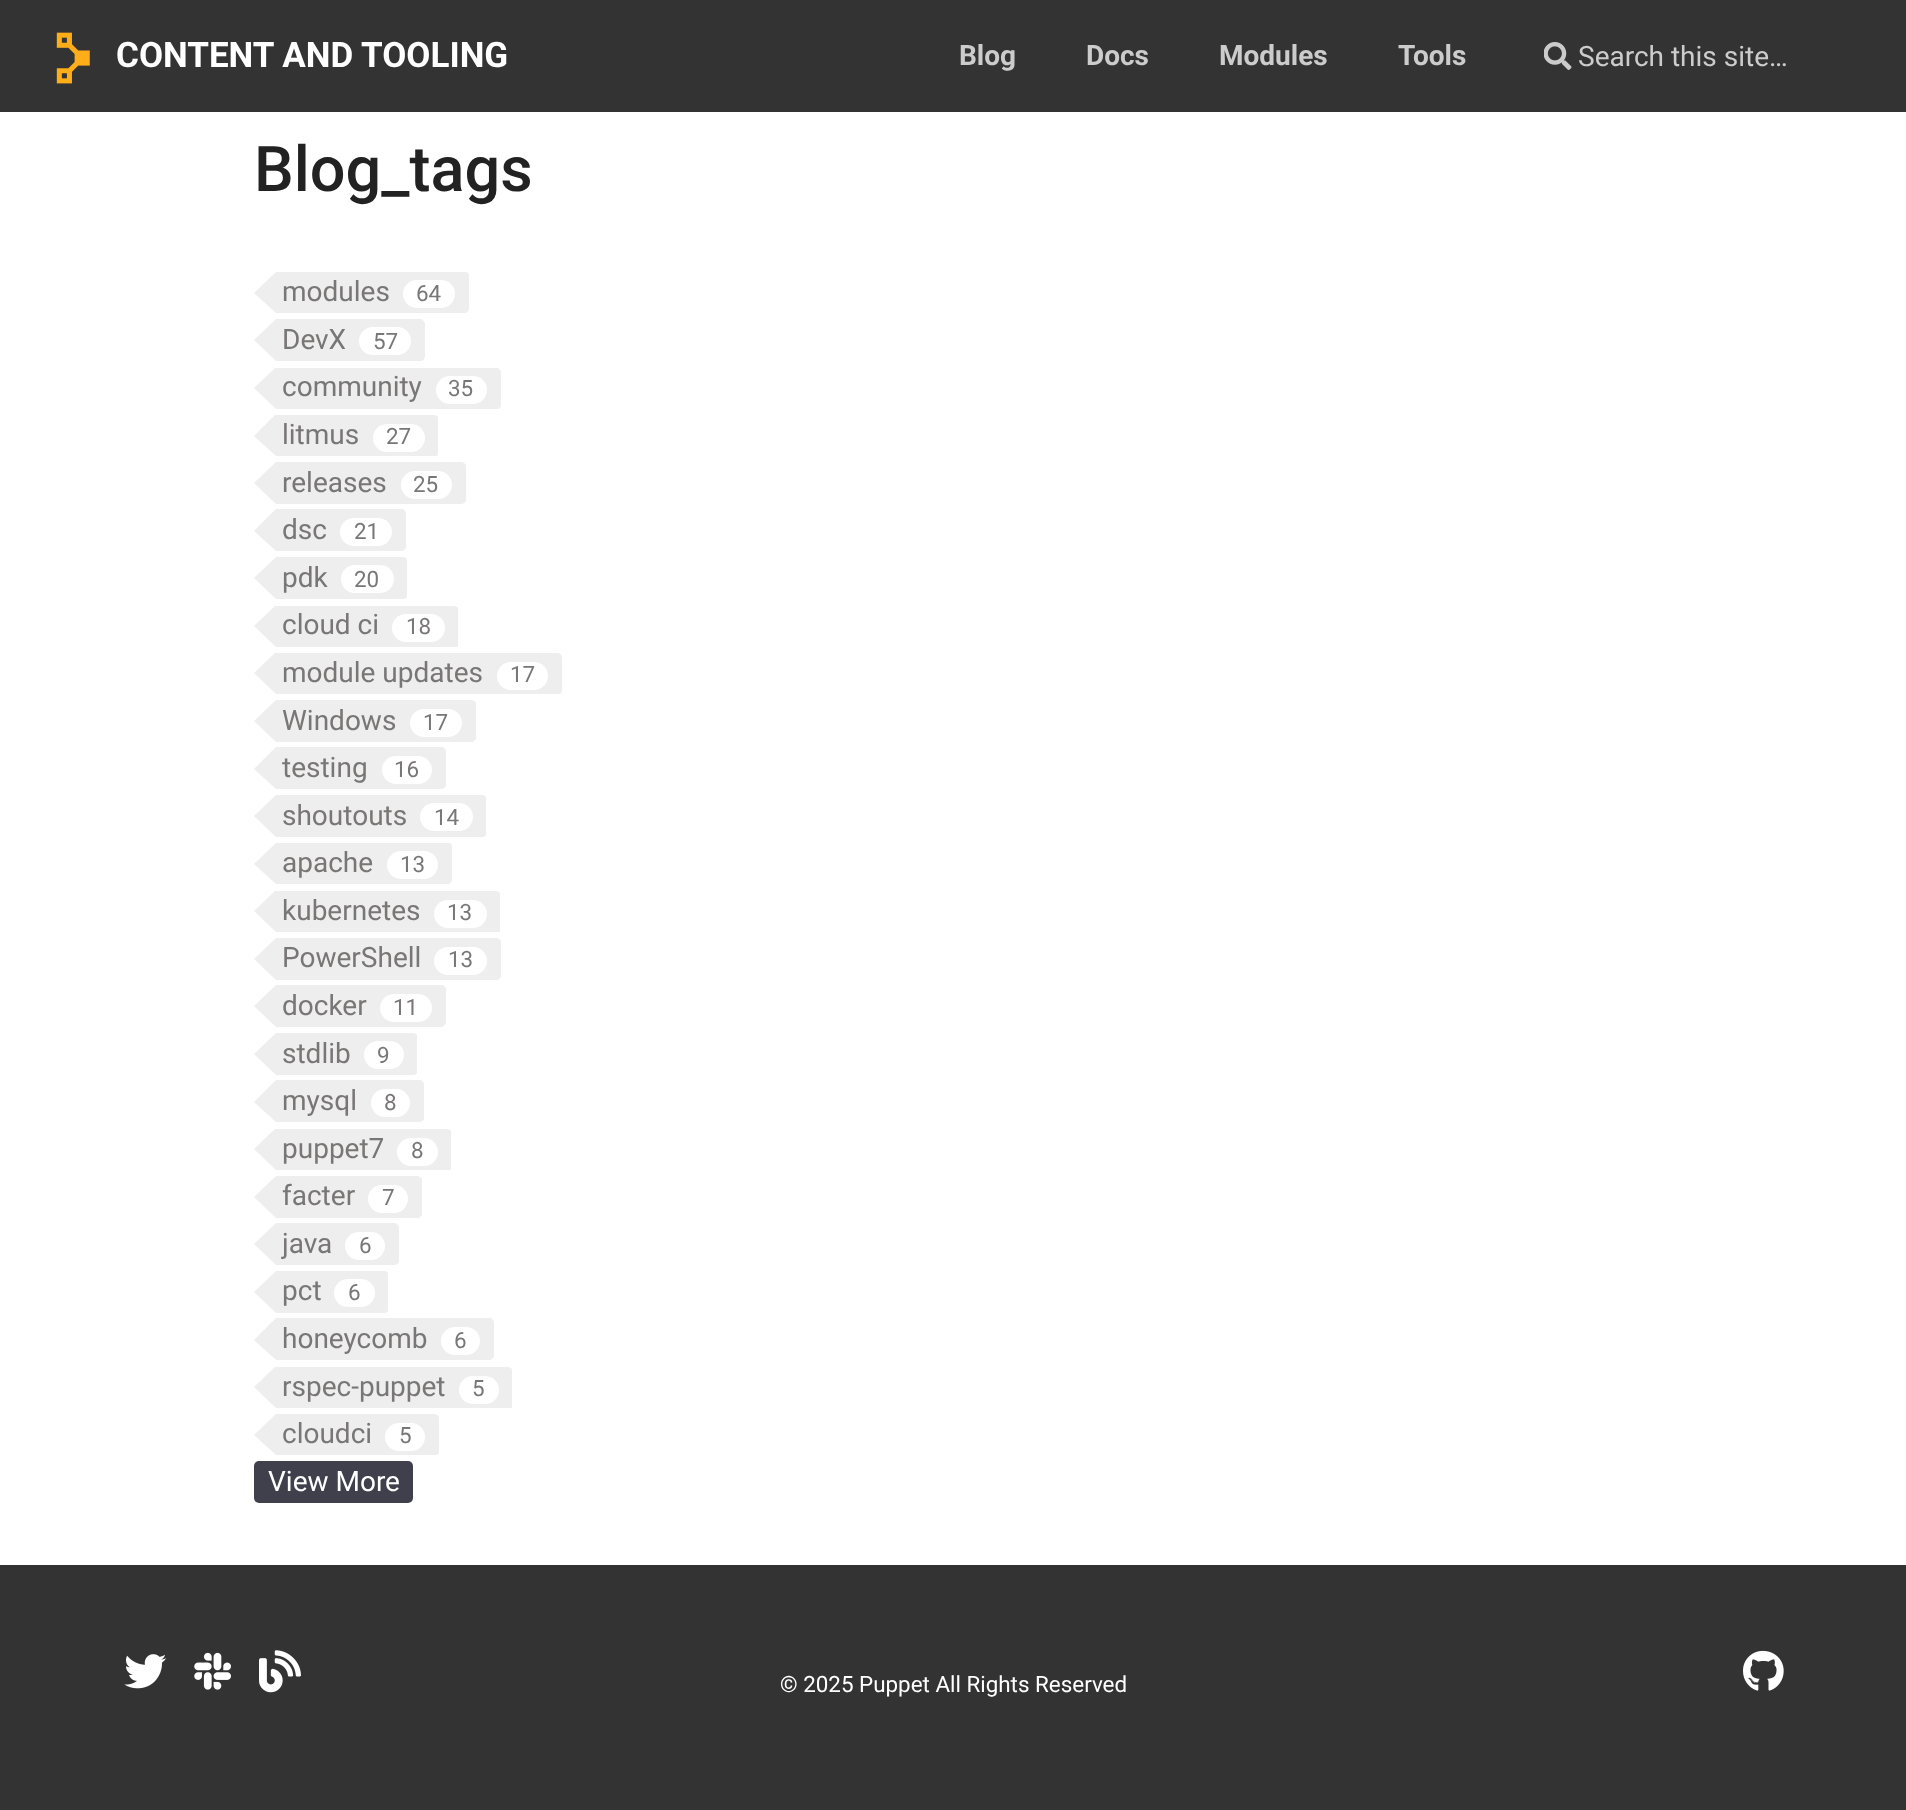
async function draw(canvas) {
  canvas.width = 1906;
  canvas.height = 1810;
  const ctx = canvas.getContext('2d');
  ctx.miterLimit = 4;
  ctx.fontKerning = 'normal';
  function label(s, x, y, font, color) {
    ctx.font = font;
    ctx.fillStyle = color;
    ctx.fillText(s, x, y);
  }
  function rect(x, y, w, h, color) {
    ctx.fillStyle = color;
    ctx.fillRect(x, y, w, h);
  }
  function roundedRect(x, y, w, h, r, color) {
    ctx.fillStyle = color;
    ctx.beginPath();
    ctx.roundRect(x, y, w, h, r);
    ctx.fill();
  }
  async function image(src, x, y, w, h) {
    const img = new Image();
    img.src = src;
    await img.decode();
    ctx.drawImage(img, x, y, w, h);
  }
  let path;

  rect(0, 0, 1906, 1810, '#fff');
  rect(0, 0, 1906, 112, '#333');
  await image('assets/img1.png', 56, 32, 34, 52);
  label('CONTENT AND TOOLING', 116, 67, 'bold 35px Roboto', '#fff');
  label('Blog', 959, 65, 'bold 28px Roboto', '#ccc');
  label('Docs', 1086, 65, 'bold 28px Roboto', '#ccc');
  label('Modules', 1219, 65, 'bold 28px Roboto', '#ccc');
  label('Tools', 1398, 65, 'bold 28px Roboto', '#ccc');
  await image('assets/img2.png', 1544, 42, 28, 28);
  label('Search this site…', 1578, 66, '28px Roboto', '#ccc');
  label('Blog_tags', 254, 191, '500 63px Roboto', '#222');
  ctx.fillStyle = '#eee';
  path = new Path2D('M254 293L276 272H466C468 272 469 274 469 276V308C469 311 467 313 464 313H276Z');
  ctx.fill(path);
  label('modules', 282, 301, '28px Roboto', '#797676');
  roundedRect(403, 280, 52, 28, 14, '#fff');
  label('64', 416, 301, '22.4px Roboto', '#797676');
  ctx.fillStyle = '#eee';
  path = new Path2D('M254 340L276 319H421C423 320 425 322 425 324V356C425 359 423 361 420 361H276Z');
  ctx.fill(path);
  label('DevX', 282, 349, '28px Roboto', '#797676');
  roundedRect(359, 327, 52, 28, 14, '#fff');
  label('57', 373, 349, '22.4px Roboto', '#797676');
  ctx.fillStyle = '#eee';
  path = new Path2D('M275 368H496C499 368 501 370 501 373V405C501 406 500 408 499 409H276L254 388Z');
  ctx.fill(path);
  label('community', 282, 396, '28px Roboto', '#797676');
  roundedRect(436, 376, 51, 28, 14, '#fff');
  label('35', 448, 396, '22.4px Roboto', '#797676');
  ctx.fillStyle = '#eee';
  path = new Path2D('M275 415H434C436 415 438 416 438 418V454L437 456H276L254 436Z');
  ctx.fill(path);
  label('litmus', 282, 444, '28px Roboto', '#797676');
  roundedRect(373, 424, 52, 28, 14, '#fff');
  label('27', 386, 444, '22.4px Roboto', '#797676');
  ctx.fillStyle = '#eee';
  path = new Path2D('M276 462H461C463 462 466 464 466 466V500C466 502 464 503 462 504H276L254 483Z');
  ctx.fill(path);
  label('releases', 282, 492, '28px Roboto', '#797676');
  roundedRect(401, 471, 51, 28, 14, '#fff');
  label('25', 413, 492, '22.4px Roboto', '#797676');
  ctx.fillStyle = '#eee';
  path = new Path2D('M254 531L276 509H403C405 510 406 512 406 514V546C406 549 404 551 401 551H276Z');
  ctx.fill(path);
  label('dsc', 282, 539, '28px Roboto', '#797676');
  roundedRect(340, 518, 52, 28, 14, '#fff');
  label('21', 354, 539, '22.4px Roboto', '#797676');
  ctx.fillStyle = '#eee';
  path = new Path2D('M254 578L276 557H404C405 557 406 558 407 559V597C406 598 405 599 403 599H276Z');
  ctx.fill(path);
  label('pdk', 282, 587, '28px Roboto', '#797676');
  roundedRect(341, 565, 53, 28, 14, '#fff');
  label('20', 354, 587, '22.4px Roboto', '#797676');
  ctx.fillStyle = '#eee';
  path = new Path2D('M275 606H454C456 606 457 607 458 608V646L457 647H276L254 626Z');
  ctx.fill(path);
  label('cloud ci', 282, 634, '28px Roboto', '#797676');
  roundedRect(392, 614, 53, 28, 14, '#fff');
  label('18', 406, 634, '22.4px Roboto', '#797676');
  ctx.fillStyle = '#eee';
  path = new Path2D('M275 653H557C560 653 562 655 562 658V690C562 692 561 693 560 694H276L254 673Z');
  ctx.fill(path);
  label('module updates', 282, 682, '28px Roboto', '#797676');
  roundedRect(497, 662, 51, 28, 14, '#fff');
  label('17', 510, 682, '22.4px Roboto', '#797676');
  ctx.fillStyle = '#eee';
  path = new Path2D('M276 700H471C473 700 475 701 476 703V739C475 740 474 741 472 742H276L254 721Z');
  ctx.fill(path);
  label('Windows', 282, 730, '28px Roboto', '#797676');
  roundedRect(410, 709, 52, 28, 14, '#fff');
  label('17', 423, 730, '22.4px Roboto', '#797676');
  ctx.fillStyle = '#eee';
  path = new Path2D('M254 769L276 747H443C445 748 446 750 446 752V784C446 787 444 789 441 789H276Z');
  ctx.fill(path);
  label('testing', 282, 777, '28px Roboto', '#797676');
  roundedRect(382, 756, 50, 28, 14, '#fff');
  label('16', 394, 777, '22.4px Roboto', '#797676');
  ctx.fillStyle = '#eee';
  path = new Path2D('M276 795H482C484 795 486 796 486 798V834C486 836 484 837 483 837H276L254 816Z');
  ctx.fill(path);
  label('shoutouts', 282, 825, '28px Roboto', '#797676');
  roundedRect(420, 803, 53, 28, 14, '#fff');
  label('14', 434, 825, '22.4px Roboto', '#797676');
  ctx.fillStyle = '#eee';
  path = new Path2D('M254 864L276 843H449C451 843 452 845 452 847V879C452 882 450 884 447 884H276Z');
  ctx.fill(path);
  label('apache', 282, 872, '28px Roboto', '#797676');
  roundedRect(387, 851, 51, 28, 14, '#fff');
  label('13', 400, 872, '22.4px Roboto', '#797676');
  ctx.fillStyle = '#eee';
  path = new Path2D('M275 891H496C497 891 499 892 500 893V931L499 932H276L254 911Z');
  ctx.fill(path);
  label('kubernetes', 282, 920, '28px Roboto', '#797676');
  roundedRect(434, 900, 53, 28, 14, '#fff');
  label('13', 447, 920, '22.4px Roboto', '#797676');
  ctx.fillStyle = '#eee';
  path = new Path2D('M276 938H496C498 938 500 939 501 941V977C500 978 499 979 498 980H276L254 959Z');
  ctx.fill(path);
  label('PowerShell', 282, 967, '28px Roboto', '#797676');
  roundedRect(434, 947, 53, 28, 14, '#fff');
  label('13', 448, 967, '22.4px Roboto', '#797676');
  ctx.fillStyle = '#eee';
  path = new Path2D('M254 1006L276 985H443C444 986 446 987 446 989V1023C445 1025 443 1027 441 1027H276Z');
  ctx.fill(path);
  label('docker', 282, 1015, '28px Roboto', '#797676');
  roundedRect(380, 994, 52, 28, 14, '#fff');
  label('11', 393, 1015, '22.4px Roboto', '#797676');
  ctx.fillStyle = '#eee';
  path = new Path2D('M276 1033H413C415 1033 417 1034 417 1036V1072C417 1074 416 1074 414 1075H276L254 1054Z');
  ctx.fill(path);
  label('stdlib', 282, 1063, '28px Roboto', '#797676');
  roundedRect(364, 1041, 40, 28, 14, '#fff');
  label('9', 377, 1063, '22.4px Roboto', '#797676');
  ctx.fillStyle = '#eee';
  path = new Path2D('M254 1102L276 1080H421C422 1081 423 1082 424 1083V1119C423 1121 421 1122 419 1122H276Z');
  ctx.fill(path);
  label('mysql', 282, 1110, '28px Roboto', '#797676');
  roundedRect(371, 1089, 39, 28, 14, '#fff');
  label('8', 384, 1110, '22.4px Roboto', '#797676');
  ctx.fillStyle = '#eee';
  path = new Path2D('M275 1129H447C449 1129 450 1130 451 1131V1169L450 1170H276L254 1149Z');
  ctx.fill(path);
  label('puppet7', 282, 1158, '28px Roboto', '#797676');
  roundedRect(397, 1138, 41, 28, 14, '#fff');
  label('8', 411, 1158, '22.4px Roboto', '#797676');
  ctx.fillStyle = '#eee';
  path = new Path2D('M276 1176H417C419 1176 421 1177 422 1179V1215C421 1216 420 1217 419 1218H276L254 1197Z');
  ctx.fill(path);
  label('facter', 282, 1205, '28px Roboto', '#797676');
  roundedRect(368, 1185, 40, 28, 14, '#fff');
  label('7', 382, 1205, '22.4px Roboto', '#797676');
  ctx.fillStyle = '#eee';
  path = new Path2D('M254 1244L276 1223H395C397 1224 399 1225 399 1227V1261C399 1263 397 1265 394 1265H276Z');
  ctx.fill(path);
  label('java', 282, 1253, '28px Roboto', '#797676');
  roundedRect(345, 1232, 40, 28, 14, '#fff');
  label('6', 359, 1253, '22.4px Roboto', '#797676');
  ctx.fillStyle = '#eee';
  path = new Path2D('M276 1271H384C386 1271 387 1272 388 1273V1311L386 1313H276L254 1292Z');
  ctx.fill(path);
  label('pct', 282, 1300, '28px Roboto', '#797676');
  roundedRect(334, 1279, 41, 28, 14, '#fff');
  label('6', 348, 1300, '22.4px Roboto', '#797676');
  ctx.fillStyle = '#eee';
  path = new Path2D('M254 1340L276 1318H491C493 1319 494 1321 494 1323V1355C494 1358 492 1360 489 1360H276Z');
  ctx.fill(path);
  label('honeycomb', 282, 1348, '28px Roboto', '#797676');
  roundedRect(441, 1327, 39, 28, 14, '#fff');
  label('6', 454, 1348, '22.4px Roboto', '#797676');
  ctx.fillStyle = '#eee';
  path = new Path2D('M275 1367H509L512 1369V1407L511 1408H276L254 1387Z');
  ctx.fill(path);
  label('rspec-puppet', 282, 1396, '28px Roboto', '#797676');
  roundedRect(459, 1376, 40, 28, 14, '#fff');
  label('5', 472, 1396, '22.4px Roboto', '#797676');
  ctx.fillStyle = '#eee';
  path = new Path2D('M276 1414H434C436 1414 438 1415 439 1417V1453C438 1454 437 1455 436 1455H276L254 1435Z');
  ctx.fill(path);
  label('cloudci', 282, 1443, '28px Roboto', '#797676');
  roundedRect(385, 1423, 40, 28, 14, '#fff');
  label('5', 399, 1443, '22.4px Roboto', '#797676');
  roundedRect(254, 1461, 159, 42, 5, '#403f4c');
  label('View More', 268, 1491, '28px Roboto', '#fff');
  rect(0, 1565, 1906, 245, '#333');
  await image('assets/img3.png', 124, 1654, 43, 35);
  await image('assets/img4.png', 194, 1652, 37, 38);
  await image('assets/img5.png', 259, 1650, 42, 43);
  label('© 2025 Puppet All Rights Reserved', 780, 1692, '22.4px Roboto', '#fff');
  await image('assets/img6.png', 1743, 1650, 41, 41);
}

draw(document.querySelector('canvas'));
